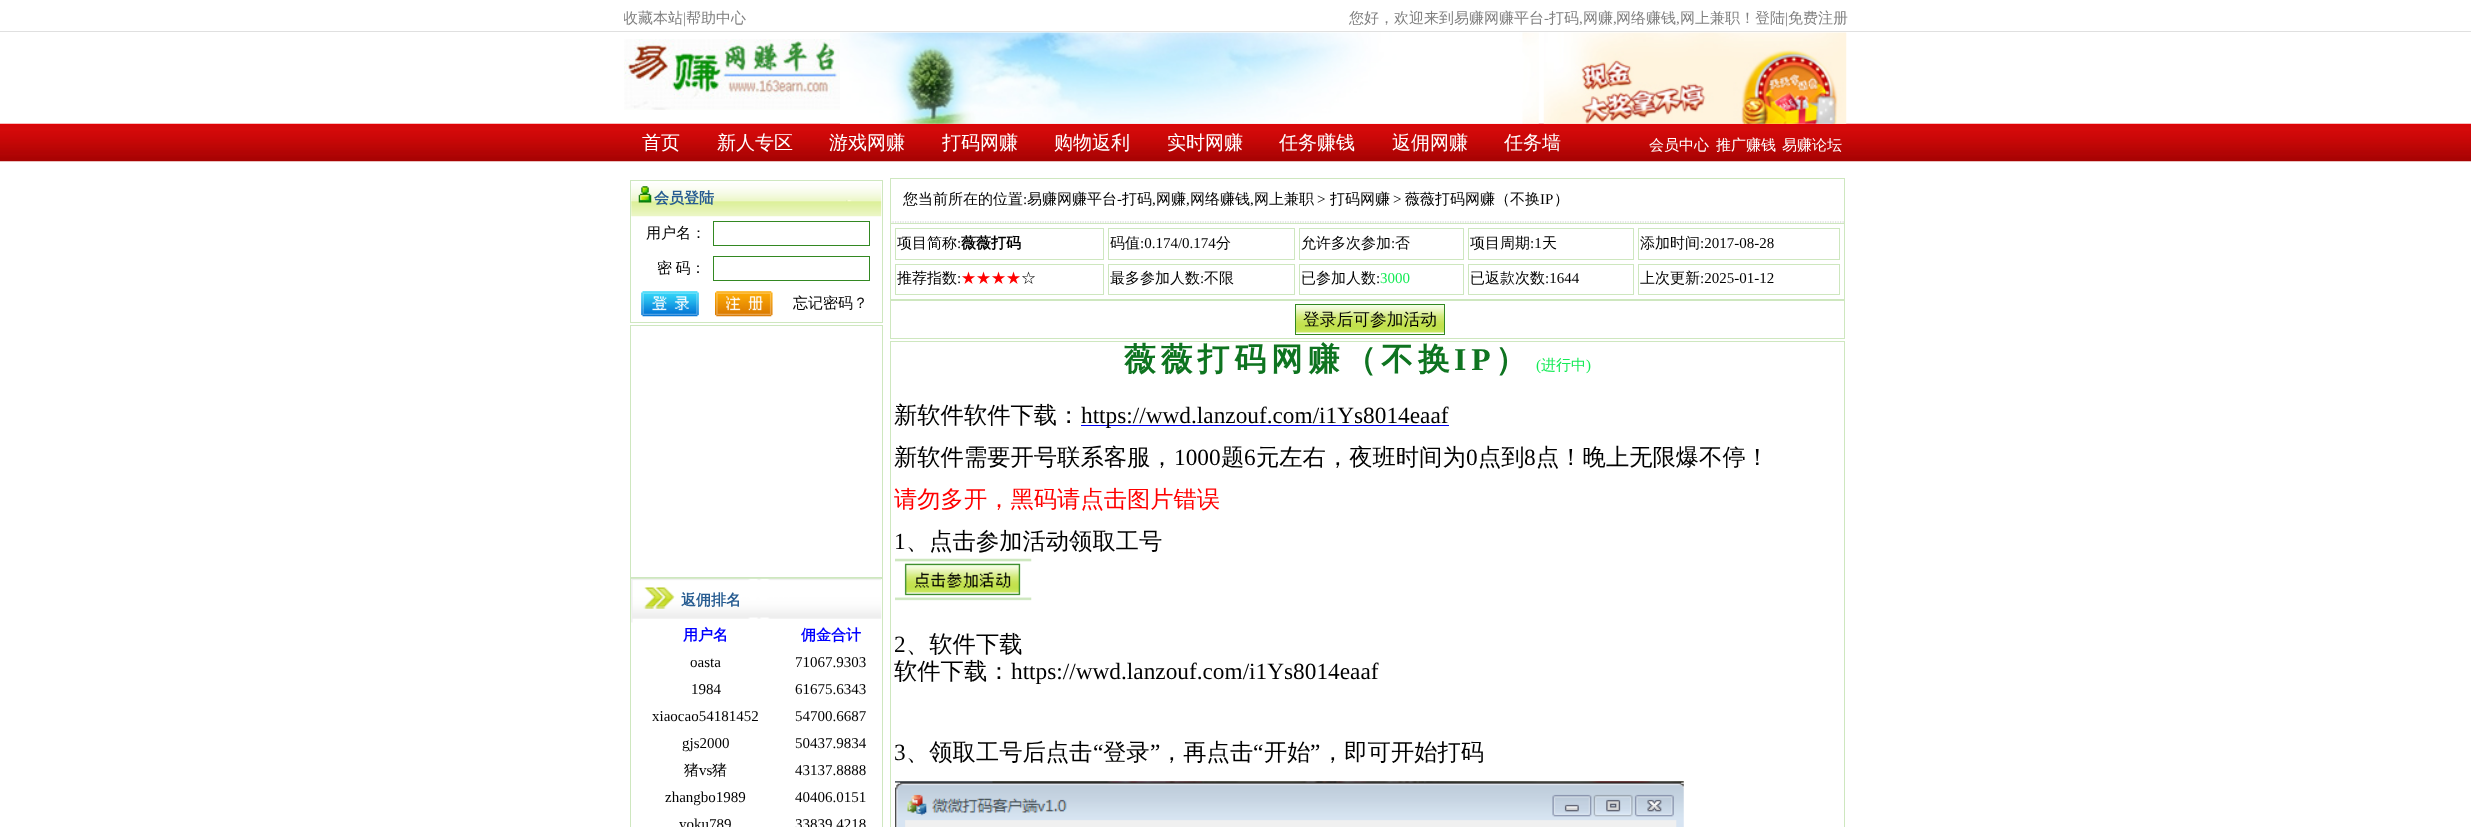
async function draw(canvas) {
  canvas.width = 2471;
  canvas.height = 827;
  const ctx = canvas.getContext('2d');
  ctx.miterLimit = 4;
  ctx.fontKerning = 'normal';
  function label(s, x, y, font, color) {
    ctx.font = font;
    ctx.fillStyle = color;
    ctx.fillText(s, x, y);
  }
  function rect(x, y, w, h, color) {
    ctx.fillStyle = color;
    ctx.fillRect(x, y, w, h);
  }
  async function image(src, x, y, w, h) {
    const img = new Image();
    img.src = src;
    await img.decode();
    ctx.drawImage(img, x, y, w, h);
  }
  let path;

  rect(0, 0, 2471, 827, '#fff');
  rect(0, 31, 2471, 1, '#e0e0e0');
  ctx.save();
  ctx.beginPath();
  ctx.rect(624, 0, 1225, 30);
  ctx.clip();
  label('收藏本站', 623, 23, '500 15px WenQuanYi Zen Hei', '#808080');
  ctx.restore();
  label('|', 683, 23, '15px Liberation Serif', '#808080');
  label('帮助中心', 686, 23, '500 15px WenQuanYi Zen Hei', '#808080');
  label('您好，欢迎来到易赚网赚平台', 1349, 23, '500 15px WenQuanYi Zen Hei', '#808080');
  label('-', 1544, 23, '15px Liberation Serif', '#808080');
  label('打码', 1549, 23, '500 15px WenQuanYi Zen Hei', '#808080');
  label('网赚', 1583, 23, '500 15px WenQuanYi Zen Hei', '#808080');
  label('网络赚钱', 1616, 23, '500 15px WenQuanYi Zen Hei', '#808080');
  label('网上兼职！登陆', 1680, 23, '500 15px WenQuanYi Zen Hei', '#808080');
  label('|', 1785, 23, '15px Liberation Serif', '#808080');
  label('免费注册', 1788, 23, '500 15px WenQuanYi Zen Hei', '#808080');
  label(',', 1579, 23, '15px Liberation Serif', '#808080');
  label(',', 1613, 23, '15px Liberation Serif', '#808080');
  label(',', 1676, 23, '15px Liberation Serif', '#808080');
  await image('assets/img1.png', 624, 39, 216, 71);
  await image('assets/img4.png', 0, 123, 2471, 39);
  await image('assets/img2.png', 840, 32, 699, 92);
  await image('assets/img3.png', 1543, 32, 304, 92);
  label('首页', 642, 149, '500 19px WenQuanYi Zen Hei', '#fff');
  label('新人专区', 717, 149, '500 19px WenQuanYi Zen Hei', '#fff');
  label('游戏网赚', 829, 149, '500 19px WenQuanYi Zen Hei', '#fff');
  label('打码网赚', 942, 149, '500 19px WenQuanYi Zen Hei', '#fff');
  label('购物返利', 1054, 149, '500 19px WenQuanYi Zen Hei', '#fff');
  label('实时网赚', 1167, 149, '500 19px WenQuanYi Zen Hei', '#fff');
  label('任务赚钱', 1279, 149, '500 19px WenQuanYi Zen Hei', '#fff');
  label('返佣网赚', 1392, 149, '500 19px WenQuanYi Zen Hei', '#fff');
  label('任务墙', 1504, 149, '500 19px WenQuanYi Zen Hei', '#fff');
  label('会员中心', 1649, 150, '500 15px WenQuanYi Zen Hei', '#fff');
  label('推广赚钱', 1716, 150, '500 15px WenQuanYi Zen Hei', '#fff');
  label('易赚论坛', 1782, 150, '500 15px WenQuanYi Zen Hei', '#fff');
  ctx.strokeStyle = '#cee7bf';
  ctx.strokeRect(630.5, 180.5, 252, 142);
  await image('assets/img5.png', 631, 183, 251, 34);
  await image('assets/img6.png', 638, 186, 14, 17);
  label('会员登陆', 654, 203, 'bold 15px WenQuanYi Zen Hei', '#275c91');
  label('用户名：', 646, 238, '500 15px WenQuanYi Zen Hei', '#000');
  ctx.strokeStyle = '#382';
  ctx.strokeRect(713.5, 221.5, 156, 24);
  ctx.wordSpacing = '-1px';
  label('密 码：', 657, 273, '500 15px WenQuanYi Zen Hei', '#000');
  ctx.strokeRect(713.5, 256.5, 156, 24);
  await image('assets/img7.png', 641, 291, 58, 26);
  await image('assets/img8.png', 715, 291, 58, 26);
  ctx.wordSpacing = '0px';
  label('忘记密码？', 793, 308, '500 15px WenQuanYi Zen Hei', '#000');
  ctx.strokeStyle = '#cee7bf';
  ctx.strokeRect(630.5, 325.5, 252, 252);
  ctx.strokeRect(630.5, 578.5, 252, 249);
  await image('assets/img9.png', 631, 578, 251, 45);
  label('返佣排名', 681, 605, 'bold 15px WenQuanYi Zen Hei', '#275c91');
  label('用户名', 683, 640, 'bold 15px WenQuanYi Zen Hei', '#00f');
  label('佣金合计', 801, 640, 'bold 15px WenQuanYi Zen Hei', '#00f');
  label('oasta', 690, 667, '15px Liberation Serif', '#000');
  label('71067.9303', 795, 667, '15px Liberation Serif', '#000');
  label('1984', 691, 694, '15px Liberation Serif', '#000');
  label('61675.6343', 795, 694, '15px Liberation Serif', '#000');
  label('xiaocao54181452', 652, 721, '15px Liberation Serif', '#000');
  label('54700.6687', 795, 721, '15px Liberation Serif', '#000');
  label('gjs2000', 682, 748, '15px Liberation Serif', '#000');
  label('50437.9834', 795, 748, '15px Liberation Serif', '#000');
  label('猪', 684, 775, '500 15px WenQuanYi Zen Hei', '#000');
  label('vs', 699, 775, '15px Liberation Serif', '#000');
  label('猪', 712, 775, '500 15px WenQuanYi Zen Hei', '#000');
  label('43137.8888', 795, 775, '15px Liberation Serif', '#000');
  label('zhangbo1989', 665, 802, '15px Liberation Serif', '#000');
  label('40406.0151', 795, 802, '15px Liberation Serif', '#000');
  label('yoku789', 679, 829, '15px Liberation Serif', '#000');
  label('33839.4218', 795, 829, '15px Liberation Serif', '#000');
  rect(890, 178, 955, 1, '#cee7bf');
  rect(1844, 178, 1, 45, '#cee7bf');
  path = new Path2D('M890 222H1845');
  ctx.strokeStyle = '#ccc';
  ctx.lineWidth = 1.2;
  ctx.setLineDash([1.25, 1.25]);
  ctx.stroke(path);
  rect(890, 178, 1, 45, '#cee7bf');
  label('您当前所在的位置', 903, 204, '500 15px WenQuanYi Zen Hei', '#000');
  label(':', 1023, 204, '15px Liberation Serif', '#000');
  label('易赚网赚平台', 1027, 204, '500 15px WenQuanYi Zen Hei', '#000');
  label('-', 1117, 204, '15px Liberation Serif', '#000');
  label('打码', 1122, 204, '500 15px WenQuanYi Zen Hei', '#000');
  label('网赚', 1156, 204, '500 15px WenQuanYi Zen Hei', '#000');
  label('网络赚钱', 1190, 204, '500 15px WenQuanYi Zen Hei', '#000');
  label('网上兼职', 1254, 204, '500 15px WenQuanYi Zen Hei', '#000');
  label('>', 1317, 204, '15px Liberation Serif', '#000');
  label('打码网赚', 1330, 204, '500 15px WenQuanYi Zen Hei', '#000');
  label('>', 1393, 204, '15px Liberation Serif', '#000');
  label('薇薇打码网赚（不换', 1405, 204, '500 15px WenQuanYi Zen Hei', '#000');
  label('IP', 1540, 204, '15px Liberation Serif', '#000');
  label('）', 1554, 204, '500 15px WenQuanYi Zen Hei', '#000');
  label(',', 1152, 204, '15px Liberation Serif', '#000');
  label(',', 1186, 204, '15px Liberation Serif', '#000');
  label(',', 1250, 204, '15px Liberation Serif', '#000');
  ctx.strokeStyle = '#cee7bf';
  ctx.lineWidth = 1;
  ctx.setLineDash([]);
  ctx.strokeRect(890.5, 223.5, 954, 76);
  ctx.strokeRect(895.5, 228.5, 208, 31);
  label('项目简称', 897, 248, '500 15px WenQuanYi Zen Hei', '#000');
  label(':', 957, 248, '15px Liberation Serif', '#000');
  label('薇薇打码', 961, 248, 'bold 15px WenQuanYi Zen Hei', '#000');
  ctx.strokeRect(1108.5, 228.5, 186, 31);
  label('码值', 1110, 248, '500 15px WenQuanYi Zen Hei', '#000');
  label(':0.174/0.174', 1140, 248, '15px Liberation Serif', '#000');
  label('分', 1216, 248, '500 15px WenQuanYi Zen Hei', '#000');
  ctx.strokeRect(1299.5, 228.5, 164, 31);
  label('允许多次参加', 1301, 248, '500 15px WenQuanYi Zen Hei', '#000');
  label(':', 1391, 248, '15px Liberation Serif', '#000');
  label('否', 1395, 248, '500 15px WenQuanYi Zen Hei', '#000');
  ctx.strokeRect(1468.5, 228.5, 165, 31);
  label('项目周期', 1470, 248, '500 15px WenQuanYi Zen Hei', '#000');
  label(':1', 1530, 248, '15px Liberation Serif', '#000');
  label('天', 1542, 248, '500 15px WenQuanYi Zen Hei', '#000');
  ctx.strokeRect(1638.5, 228.5, 201, 31);
  label('添加时间', 1640, 248, '500 15px WenQuanYi Zen Hei', '#000');
  label(':2017-08-28', 1700, 248, '15px Liberation Serif', '#000');
  ctx.strokeRect(895.5, 264.5, 208, 30);
  label('推荐指数', 897, 283, '500 15px WenQuanYi Zen Hei', '#000');
  label(':', 957, 283, '15px Liberation Serif', '#000');
  label('★★★★', 961, 283, '500 15px WenQuanYi Zen Hei', '#f00');
  label('☆', 1021, 283, '500 15px WenQuanYi Zen Hei', '#000');
  ctx.strokeRect(1108.5, 264.5, 186, 30);
  label('最多参加人数', 1110, 283, '500 15px WenQuanYi Zen Hei', '#000');
  label(':', 1200, 283, '15px Liberation Serif', '#000');
  label('不限', 1204, 283, '500 15px WenQuanYi Zen Hei', '#000');
  ctx.strokeRect(1299.5, 264.5, 164, 30);
  label('已参加人数', 1301, 283, '500 15px WenQuanYi Zen Hei', '#000');
  label(':', 1376, 283, '15px Liberation Serif', '#000');
  label('3000', 1380, 283, '15px Liberation Serif', '#14eb55');
  ctx.strokeRect(1468.5, 264.5, 165, 30);
  label('已返款次数', 1470, 283, '500 15px WenQuanYi Zen Hei', '#000');
  label(':1644', 1545, 283, '15px Liberation Serif', '#000');
  ctx.strokeRect(1638.5, 264.5, 201, 30);
  label('上次更新', 1640, 283, '500 15px WenQuanYi Zen Hei', '#000');
  label(':2025-01-12', 1700, 283, '15px Liberation Serif', '#000');
  ctx.strokeRect(890.5, 300.5, 954, 38);
  await image('assets/img10.png', 1296, 305, 148, 28);
  ctx.strokeStyle = '#382';
  ctx.strokeRect(1295.5, 304.5, 149, 30);
  label('登录后可参加活动', 1303, 325, '500 16.75px WenQuanYi Zen Hei', '#000');
  ctx.strokeStyle = '#cee7bf';
  ctx.strokeRect(890.5, 341.5, 954, 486);
  ctx.letterSpacing = '5px';
  label('薇薇打码网赚（不换', 1124, 370, 'bold 31.75px WenQuanYi Zen Hei', '#0e7420');
  label('IP', 1454, 370, 'bold 31.75px Liberation Serif', '#0e7420');
  label('）', 1495, 370, 'bold 31.75px WenQuanYi Zen Hei', '#0e7420');
  ctx.letterSpacing = '0px';
  label('(', 1536, 370, '15px Liberation Serif', '#14eb55');
  label('进行中', 1541, 370, '500 15px WenQuanYi Zen Hei', '#14eb55');
  label(')', 1586, 370, '15px Liberation Serif', '#14eb55');
  label('新软件软件下载：', 894, 423, '500 23.3px WenQuanYi Zen Hei', '#000');
  rect(1081, 425, 368, 1, '#00e');
  label('https://wwd.lanzouf.com/i1Ys8014eaaf', 1081, 423, '23.3px Liberation Serif', '#000');
  label('新软件需要开号联系客服，', 894, 465, '500 23.3px WenQuanYi Zen Hei', '#000');
  label('1000', 1174, 465, '23.3px Liberation Serif', '#000');
  label('题', 1221, 465, '500 23.3px WenQuanYi Zen Hei', '#000');
  label('6', 1244, 465, '23.3px Liberation Serif', '#000');
  label('元左右，夜班时间为', 1256, 465, '500 23.3px WenQuanYi Zen Hei', '#000');
  label('0', 1466, 465, '23.3px Liberation Serif', '#000');
  label('点到', 1478, 465, '500 23.3px WenQuanYi Zen Hei', '#000');
  label('8', 1524, 465, '23.3px Liberation Serif', '#000');
  label('点！晚上无限爆不停！', 1536, 465, '500 23.3px WenQuanYi Zen Hei', '#000');
  label('请勿多开，黑码请点击图片错误', 894, 507, '500 23.3px WenQuanYi Zen Hei', '#f00');
  label('1', 894, 549, '23.3px Liberation Serif', '#000');
  label('、点击参加活动领取工号', 906, 549, '500 23.3px WenQuanYi Zen Hei', '#000');
  await image('assets/img11.png', 895, 558, 137, 43);
  label('2', 894, 652, '23.3px Liberation Serif', '#000');
  label('、软件下载', 906, 652, '500 23.3px WenQuanYi Zen Hei', '#000');
  label('软件下载：', 894, 679, '500 23.3px WenQuanYi Zen Hei', '#000');
  label('https://wwd.lanzouf.com/i1Ys8014eaaf', 1011, 679, '23.3px Liberation Serif', '#000');
  label('3', 894, 760, '23.3px Liberation Serif', '#000');
  label('、领取工号后点击', 906, 760, '500 23.3px WenQuanYi Zen Hei', '#000');
  label('“', 1093, 760, '23.3px Liberation Serif', '#000');
  label('登录', 1103, 760, '500 23.3px WenQuanYi Zen Hei', '#000');
  label('”', 1150, 760, '23.3px Liberation Serif', '#000');
  label('，再点击', 1160, 760, '500 23.3px WenQuanYi Zen Hei', '#000');
  label('“', 1253, 760, '23.3px Liberation Serif', '#000');
  label('开始', 1264, 760, '500 23.3px WenQuanYi Zen Hei', '#000');
  label('”', 1310, 760, '23.3px Liberation Serif', '#000');
  label('，即可开始打码', 1321, 760, '500 23.3px WenQuanYi Zen Hei', '#000');
  await image('assets/img12.png', 895, 781, 789, 46);
}

draw(document.querySelector('canvas'));
